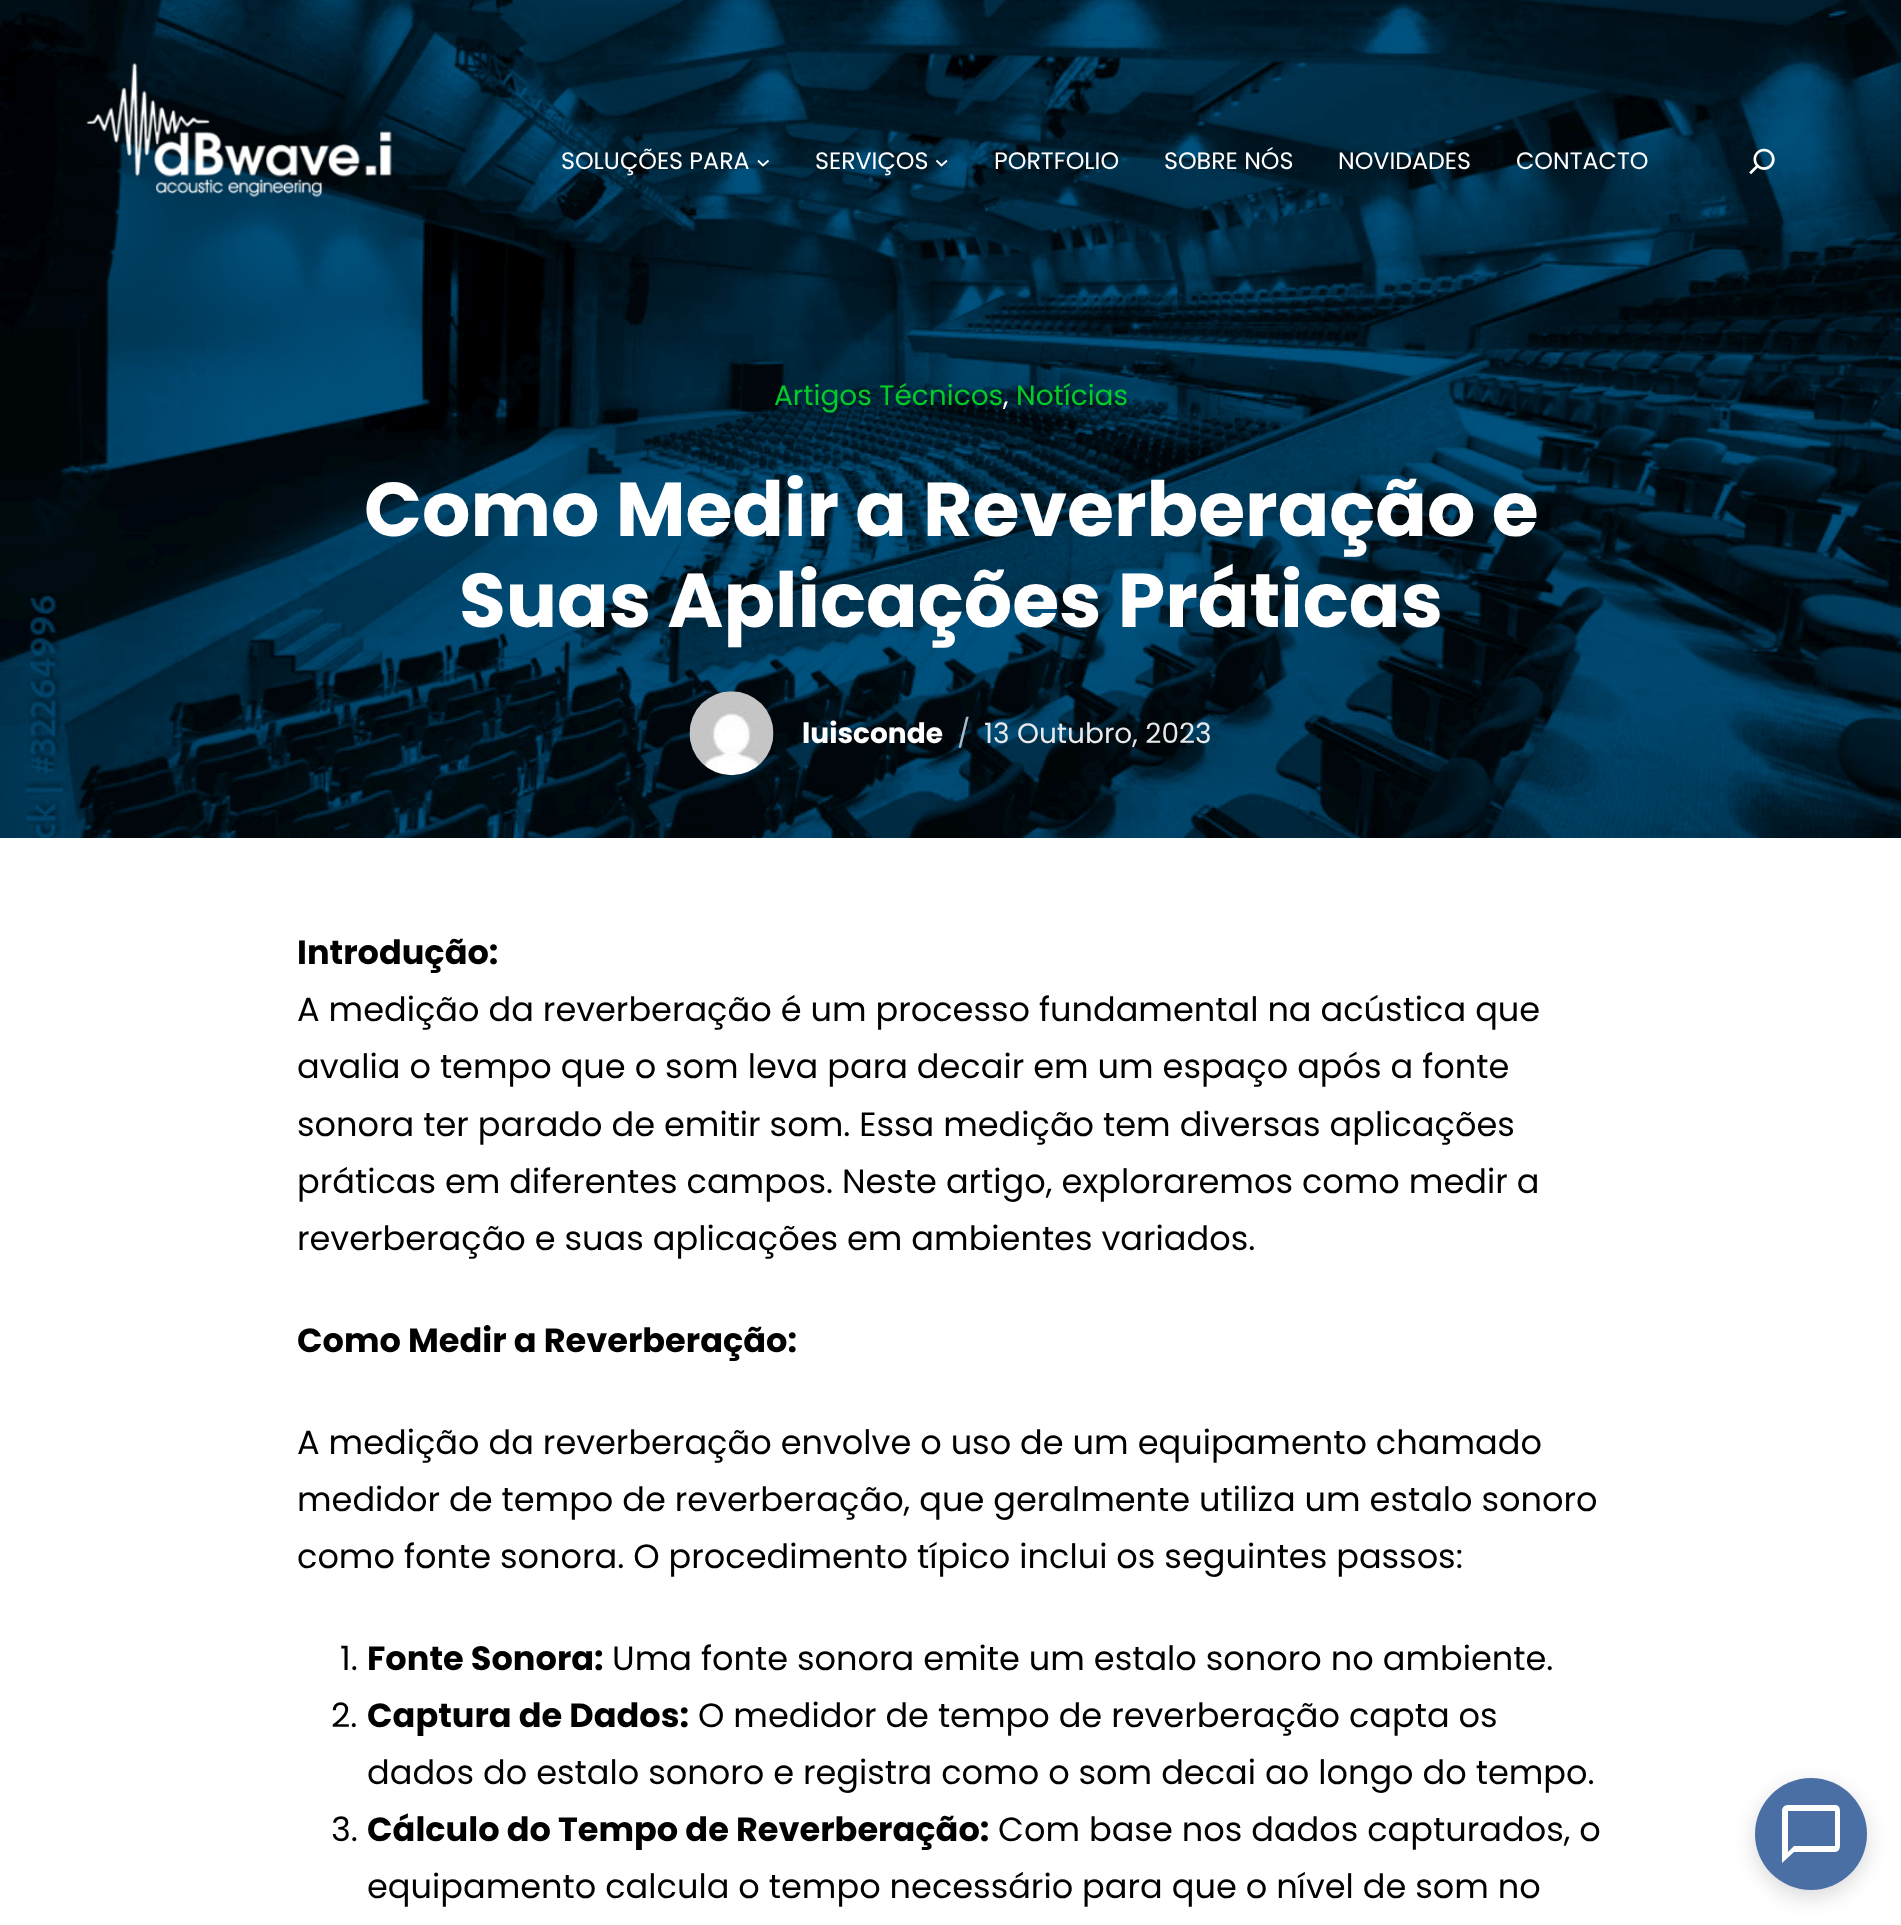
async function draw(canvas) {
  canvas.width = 1901;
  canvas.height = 1925;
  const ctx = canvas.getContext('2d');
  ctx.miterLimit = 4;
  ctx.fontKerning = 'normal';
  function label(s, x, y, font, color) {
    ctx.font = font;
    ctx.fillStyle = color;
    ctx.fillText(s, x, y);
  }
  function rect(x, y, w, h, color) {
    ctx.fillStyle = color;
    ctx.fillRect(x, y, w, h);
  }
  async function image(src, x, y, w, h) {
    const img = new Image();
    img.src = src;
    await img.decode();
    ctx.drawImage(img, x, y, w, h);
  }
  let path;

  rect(0, 0, 1901, 1925, '#fff');
  await image('assets/img3.png', 0, 0, 1901, 838);
  await image('assets/img1.png', 86, 62, 306, 136);
  label('SOLUÇÕES PARA', 561, 169, '23.75px Poppins', '#fff');
  path = new Path2D('M758 160.5L763 165.5L768.5 160.5');
  ctx.strokeStyle = '#fffffe';
  ctx.lineWidth = 1.8;
  ctx.stroke(path);
  label('SERVIÇOS', 815, 169, '23.75px Poppins', '#fff');
  path = new Path2D('M936.5 160.5L941.5 165.5L947 160.5');
  ctx.stroke(path);
  label('PORTFOLIO', 994, 169, '23.75px Poppins', '#fff');
  label('SOBRE NÓS', 1164, 169, '23.75px Poppins', '#fff');
  label('NOVIDADES', 1338, 169, '23.75px Poppins', '#fff');
  label('CONTACTO', 1516, 169, '23.75px Poppins', '#fff');
  await image('assets/img2.png', 1749, 148, 26, 27);
  label('Artigos Técnicos', 774, 405, '28px Poppins', '#03cb28');
  label(',', 1003, 405, '28px Poppins', '#fff');
  label('Notícias', 1016, 405, '28px Poppins', '#03cb28');
  label('Como Medir a Reverberação e', 364, 536, 'bold 76.1px Poppins', '#fff');
  label('Suas Aplicações Práticas', 459, 627, 'bold 76.1px Poppins', '#fff');
  await image('assets/img4.png', 689, 691, 85, 85);
  label('luisconde', 802, 743, 'bold 28px Poppins', '#fff');
  label('/', 957, 743, '28px Poppins', '#a8b8cd');
  label('13 Outubro, 2023', 984, 743, '28px Poppins', '#e9e9e9');
  label('Introdução:', 297, 964, 'bold 33.6px Poppins', '#000001');
  label('A medição da reverberação é um processo fundamental na acústica que', 297, 1021, '33.6px Poppins', '#000001');
  label('avalia o tempo que o som leva para decair em um espaço após a fonte', 297, 1078, '33.6px Poppins', '#000001');
  label('sonora ter parado de emitir som. Essa medição tem diversas aplicações', 297, 1136, '33.6px Poppins', '#000001');
  label('práticas em diferentes campos. Neste artigo, exploraremos como medir a', 297, 1193, '33.6px Poppins', '#000001');
  label('reverberação e suas aplicações em ambientes variados.', 297, 1250, '33.6px Poppins', '#000001');
  label('Como Medir a Reverberação:', 297, 1352, 'bold 33.6px Poppins', '#000001');
  label('A medição da reverberação envolve o uso de um equipamento chamado', 297, 1454, '33.6px Poppins', '#000001');
  label('medidor de tempo de reverberação, que geralmente utiliza um estalo sonoro', 297, 1511, '33.6px Poppins', '#000001');
  label('como fonte sonora. O procedimento típico inclui os seguintes passos:', 297, 1568, '33.6px Poppins', '#000001');
  label('1.', 340, 1670, '33.6px Poppins', '#000001');
  label('Fonte Sonora:', 367, 1670, 'bold 33.6px Poppins', '#000001');
  label('Uma fonte sonora emite um estalo sonoro no ambiente.', 612, 1670, '33.6px Poppins', '#000001');
  label('2.', 331, 1727, '33.6px Poppins', '#000001');
  label('Captura de Dados:', 367, 1727, 'bold 33.6px Poppins', '#000001');
  label('O medidor de tempo de reverberação capta os', 698, 1727, '33.6px Poppins', '#000001');
  label('dados do estalo sonoro e registra como o som decai ao longo do tempo.', 367, 1784, '33.6px Poppins', '#000001');
  label('3.', 331, 1841, '33.6px Poppins', '#000001');
  label('Cálculo do Tempo de Reverberação:', 367, 1841, 'bold 33.6px Poppins', '#000001');
  label('Com base nos dados capturados, o', 998, 1841, '33.6px Poppins', '#000001');
  label('equipamento calcula o tempo necessário para que o nível de som no', 367, 1898, '33.6px Poppins', '#000001');
  ctx.fillStyle = '#00000026';
  ctx.filter = 'blur(10.5px)';
  ctx.beginPath();
  ctx.roundRect(1755, 1785, 112, 112, 56);
  ctx.fill();
  ctx.filter = 'none';
  ctx.fillStyle = '#4a6fa5';
  ctx.beginPath();
  ctx.arc(1811, 1834, 56, 0, 2 * Math.PI);
  ctx.fill();
  ctx.fillStyle = '#fff';
  path = new Path2D('M1835 1805H1788C1785 1805 1782 1807 1782 1811V1863L1794 1852H1835C1838 1852 1840 1849 1840 1846V1811C1840 1807 1838 1805 1835 1805ZM1835 1846H1794L1788 1852V1811H1835Z');
  ctx.fill(path);
}

draw(document.querySelector('canvas'));
